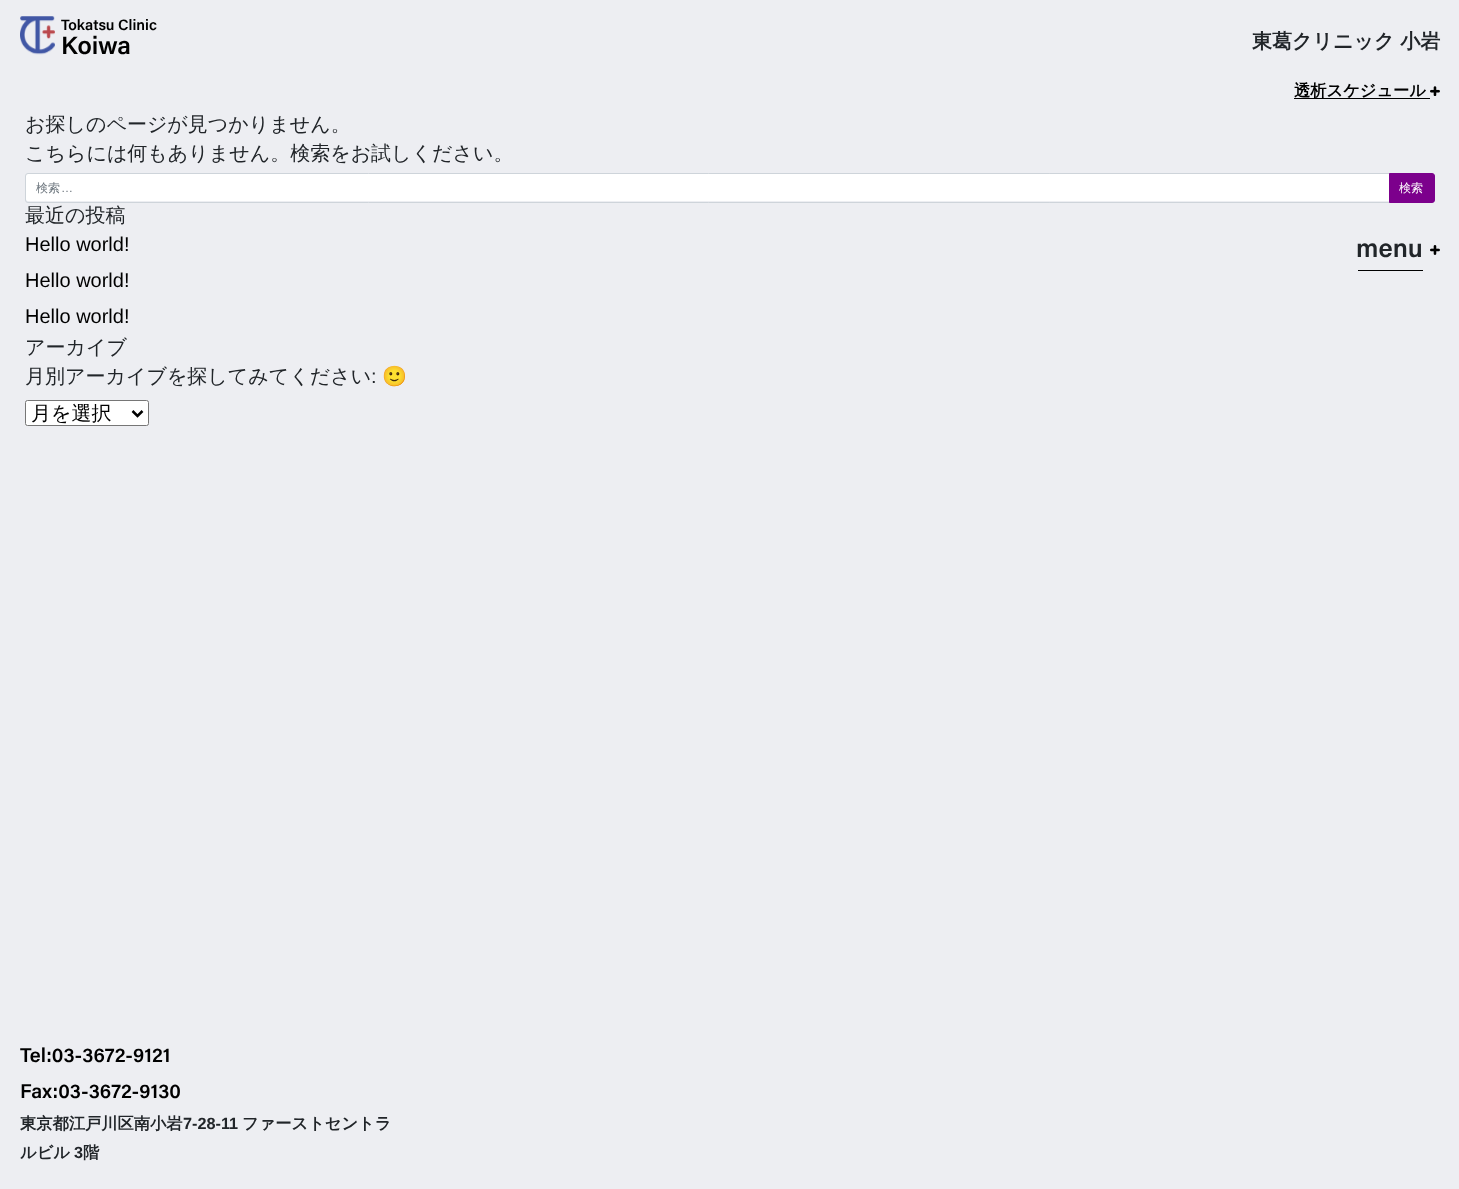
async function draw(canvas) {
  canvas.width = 1459;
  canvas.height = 1189;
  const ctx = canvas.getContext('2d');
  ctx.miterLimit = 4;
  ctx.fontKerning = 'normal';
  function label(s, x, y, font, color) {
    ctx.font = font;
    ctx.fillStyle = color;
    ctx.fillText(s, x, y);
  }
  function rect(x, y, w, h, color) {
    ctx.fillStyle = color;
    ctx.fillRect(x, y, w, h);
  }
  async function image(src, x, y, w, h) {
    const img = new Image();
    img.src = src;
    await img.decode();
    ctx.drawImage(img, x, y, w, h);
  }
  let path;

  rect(0, 0, 1459, 1189, '#edeef2');
  await image('assets/img1.png', 20, 16, 35, 39);
  label('Tokatsu Clinic', 61, 30, '600 15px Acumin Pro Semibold', '#000');
  label('Koiwa', 61, 54, '600 25px Acumin Pro Semibold', '#000');
  label('Tel:03-3672-9121', 20, 1062, '600 20px Acumin Pro Semibold', '#000');
  label('Fax:03-3672-9130', 20, 1098, '600 20px Acumin Pro Semibold', '#000');
  label('東京都江戸川区南小岩', 20, 1129, 'bold 16.25px WenQuanYi Zen Hei', '#212529');
  label('7-28-11', 183, 1129, 'bold 16.25px Liberation Sans', '#212529');
  label('ファーストセントラ', 242, 1129, 'bold 16.25px WenQuanYi Zen Hei', '#212529');
  label('ルビル', 20, 1158, 'bold 16.25px WenQuanYi Zen Hei', '#212529');
  label('3', 74, 1158, 'bold 16.25px Liberation Sans', '#212529');
  label('階', 83, 1158, 'bold 16.25px WenQuanYi Zen Hei', '#212529');
  label('お探しのページが見つかりません。', 25, 131, '500 20px WenQuanYi Zen Hei', '#212529');
  label('こちらには何もありません。検索をお試しください。', 25, 160, '500 20px WenQuanYi Zen Hei', '#212529');
  ctx.fillStyle = '#fff';
  ctx.beginPath();
  ctx.roundRect(26, 174, 1363, 27, [2, 0, 0, 2]);
  ctx.fill();
  ctx.beginPath();
  ctx.roundRect(25.5, 173.5, 1364, 29, [2.5, 0, 0, 2.5]);
  ctx.strokeStyle = '#ced4da';
  ctx.stroke();
  label('検索', 36, 192, '500 12px WenQuanYi Zen Hei', '#6c757d');
  label('…', 61, 192, '12px Liberation Sans', '#6c757d');
  ctx.fillStyle = '#7c008c';
  ctx.beginPath();
  ctx.roundRect(1389.5, 173.5, 45, 29, [0, 2.5, 2.5, 0]);
  ctx.fill();
  ctx.strokeStyle = '#7c008c';
  ctx.stroke();
  label('検索', 1399, 192, '500 12px WenQuanYi Zen Hei', '#fff');
  label('最近の投稿', 25, 222, '500 20px WenQuanYi Zen Hei', '#212529');
  label('Hello world!', 25, 251, '20px Liberation Sans', '#000');
  label('Hello world!', 25, 287, '20px Liberation Sans', '#000');
  label('Hello world!', 25, 323, '20px Liberation Sans', '#000');
  label('アーカイブ', 25, 354, '500 20px WenQuanYi Zen Hei', '#212529');
  label('月別アーカイブを探してみてください', 25, 383, '500 20px WenQuanYi Zen Hei', '#212529');
  label(':', 371, 383, '20px Liberation Sans', '#212529');
  label('🙂', 382, 383, '20px Noto Color Emoji', '#212529');
  ctx.fillStyle = '#fff';
  ctx.beginPath();
  ctx.roundRect(25.5, 400.5, 123, 25, 2);
  ctx.fill();
  ctx.strokeStyle = '#767676';
  ctx.stroke();
  path = new Path2D('M132.5 411L137.5 416L142.5 411');
  ctx.strokeStyle = '#000';
  ctx.lineWidth = 2.5;
  ctx.stroke(path);
  label('月を選択', 31, 420, '500 20px WenQuanYi Zen Hei', '#000');
  label('東葛クリニック 小岩', 1252, 48, 'bold 20px WenQuanYi Zen Hei', '#212529');
  rect(1294, 98, 136, 1, '#000');
  label('透析スケジュール', 1294, 96, 'bold 16.25px WenQuanYi Zen Hei', '#000');
  await image('assets/img2.png', 1430, 86, 10, 10);
  label('menu', 1356, 257, '600 26px Acumin Pro Semibold', '#212529');
  await image('assets/img3.png', 1430, 245, 10, 10);
  rect(1358, 270, 65, 1, '#000');
}

draw(document.querySelector('canvas'));
